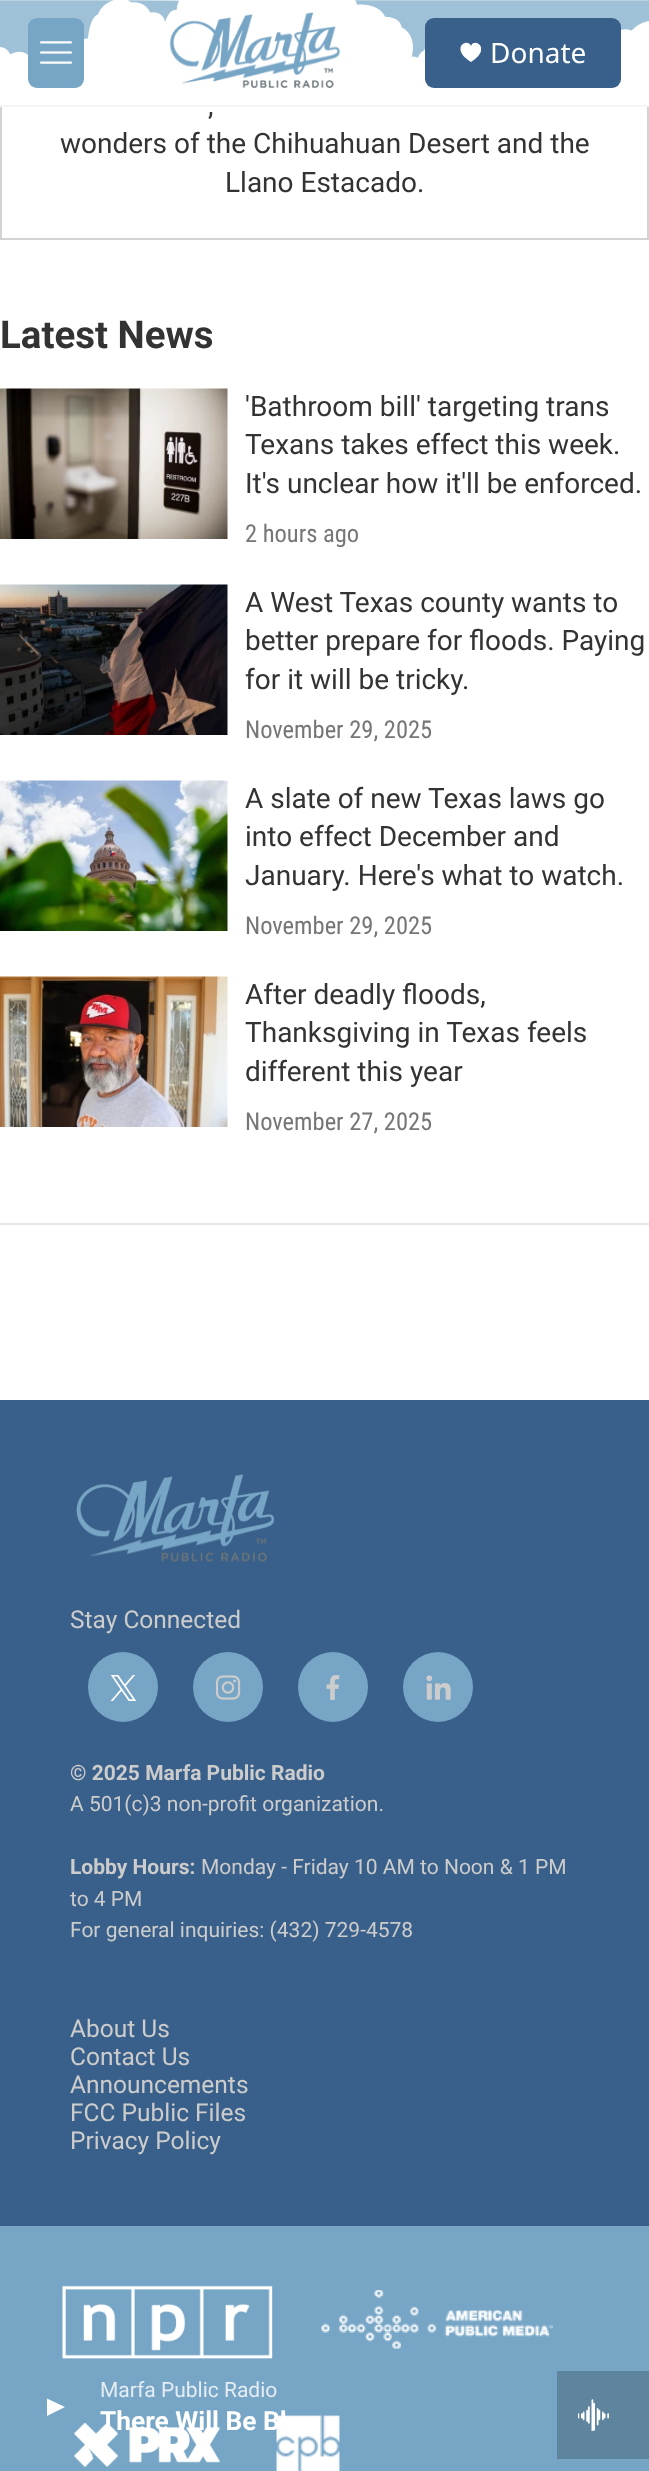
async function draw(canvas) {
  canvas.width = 649;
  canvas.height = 2471;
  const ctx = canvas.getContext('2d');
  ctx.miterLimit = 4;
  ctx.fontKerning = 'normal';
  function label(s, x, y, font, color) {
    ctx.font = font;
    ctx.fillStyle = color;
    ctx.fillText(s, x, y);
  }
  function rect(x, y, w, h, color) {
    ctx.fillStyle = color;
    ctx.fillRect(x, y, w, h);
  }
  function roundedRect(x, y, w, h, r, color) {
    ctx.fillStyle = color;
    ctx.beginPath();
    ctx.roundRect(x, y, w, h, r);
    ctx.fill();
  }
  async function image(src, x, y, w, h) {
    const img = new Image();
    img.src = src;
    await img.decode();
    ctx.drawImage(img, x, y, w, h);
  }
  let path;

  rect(0, 0, 649, 2471, '#fff');
  ctx.strokeStyle = '#d3d3d3';
  ctx.lineWidth = 2;
  ctx.strokeRect(1, -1, 647, 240);
  rect(0, 63, 649, 42, '#fff');
  rect(0, 105, 649, 2, '#f5f5f5');
  await image('assets/img1.png', 0, 0, 649, 63);
  roundedRect(28, 18, 56, 70, 9, '#76a5c5');
  await image('assets/img2.png', 40, 41, 32, 23);
  await image('assets/img3.png', 169, 12, 171, 76);
  roundedRect(425, 18, 196, 70, 9, '#39608a');
  ctx.save();
  ctx.beginPath();
  ctx.rect(460, 42, 21, 21);
  ctx.clip();
  ctx.fillStyle = '#fff';
  path = new Path2D('M471 46C467.5 37 449 48.5 471 62C492.5 48.5 474 37 471 46Z');
  ctx.fill(path);
  ctx.restore();
  label('Donate', 490, 63, '28px Noto Sans', '#fff');
  rect(0, 2226, 649, 245, '#76a5c5');
  ctx.fillStyle = '#fff';
  path = new Path2D('M47 2398.5L65 2407L47 2416Z');
  ctx.fill(path);
  label('Marfa Public Radio', 100, 2397, '21px Roboto', '#e4edf3');
  await image('assets/img16.png', 74, 2422, 146, 45);
  await image('assets/img17.png', 276, 2415, 64, 56);
  label('There Will Be Bl', 100, 2430, 'bold 26.25px Roboto', '#fff');
  rect(557, 2371, 92, 88, '#5e849e');
  await image('assets/img4.png', 578, 2399, 31, 32);
  label(',', 208, 115, '28px Roboto', '#333');
  label('wonders of the Chihuahuan Desert and the', 60, 153, '28px Roboto', '#333');
  label('Llano Estacado.', 225, 192, '28px Roboto', '#333');
  label('Latest News', 0, 348, 'bold 38.5px "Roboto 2"', '#333');
  rect(0, 1223, 649, 2, '#e6e6e6');
  await image('assets/img5.png', 0, 388, 228, 151);
  label('\'Bathroom bill\' targeting trans', 245, 416, '28px Roboto', '#333');
  label('Texans takes effect this week.', 245, 454, '28px Roboto', '#333');
  label('It\'s unclear how it\'ll be enforced.', 245, 493, '28px Roboto', '#333');
  label('2 hours ago', 245, 542, '24.5px Roboto Condensed', '#767676');
  await image('assets/img6.png', 0, 584, 228, 151);
  label('A West Texas county wants to', 245, 612, '28px Roboto', '#333');
  label('better prepare for floods. Paying', 245, 650, '28px Roboto', '#333');
  label('for it will be tricky.', 245, 689, '28px Roboto', '#333');
  label('November 29, 2025', 245, 738, '24.5px Roboto Condensed', '#767676');
  await image('assets/img7.png', 0, 780, 228, 151);
  label('A slate of new Texas laws go', 245, 808, '28px Roboto', '#333');
  label('into effect December and', 245, 846, '28px Roboto', '#333');
  label('January. Here\'s what to watch.', 245, 885, '28px Roboto', '#333');
  label('November 29, 2025', 245, 934, '24.5px Roboto Condensed', '#767676');
  await image('assets/img8.png', 0, 976, 228, 151);
  label('After deadly floods,', 245, 1004, '28px Roboto', '#333');
  label('Thanksgiving in Texas feels', 245, 1042, '28px Roboto', '#333');
  label('different this year', 245, 1081, '28px Roboto', '#333');
  label('November 27, 2025', 245, 1130, '24.5px Roboto Condensed', '#767676');
  rect(0, 1400, 649, 826, '#39608a');
  await image('assets/img9.png', 76, 1474, 198, 88);
  label('Stay Connected', 70, 1628, '24.5px Roboto', '#ccc');
  ctx.fillStyle = '#76a5c5';
  ctx.beginPath();
  ctx.arc(123, 1687, 35, 0, 2 * Math.PI);
  ctx.fill();
  await image('assets/img10.png', 110, 1675, 27, 26);
  ctx.beginPath();
  ctx.arc(228, 1687, 35, 0, 2 * Math.PI);
  ctx.fill();
  await image('assets/img11.png', 215, 1675, 26, 25);
  ctx.beginPath();
  ctx.arc(333, 1687, 35, 0, 2 * Math.PI);
  ctx.fill();
  await image('assets/img12.png', 326, 1675, 14, 25);
  ctx.beginPath();
  ctx.arc(438, 1687, 35, 0, 2 * Math.PI);
  ctx.fill();
  await image('assets/img13.png', 426, 1675, 25, 25);
  label('© 2025 Marfa Public Radio', 70, 1780, 'bold 21px Roboto', '#ccc');
  label('A 501(c)3 non-profit organization.', 70, 1811, '21px Roboto', '#ccc');
  label('Lobby Hours:', 70, 1874, 'bold 21px Roboto', '#ccc');
  label('Monday - Friday 10 AM to Noon & 1 PM', 201, 1874, '21px Roboto', '#ccc');
  label('to 4 PM', 70, 1906, '21px Roboto', '#ccc');
  label('For general inquiries: (432) 729-4578', 70, 1937, '21px Roboto', '#ccc');
  label('About Us', 70, 2037, '24.5px Roboto', '#ccc');
  label('Contact Us', 70, 2065, '24.5px Roboto', '#ccc');
  label('Announcements', 70, 2093, '24.5px Roboto', '#ccc');
  label('FCC Public Files', 70, 2121, '24.5px Roboto', '#ccc');
  label('Privacy Policy', 70, 2149, '24.5px Roboto', '#ccc');
  await image('assets/img14.png', 62, 2285, 211, 74);
  await image('assets/img15.png', 320, 2289, 233, 60);
}

draw(document.querySelector('canvas'));
